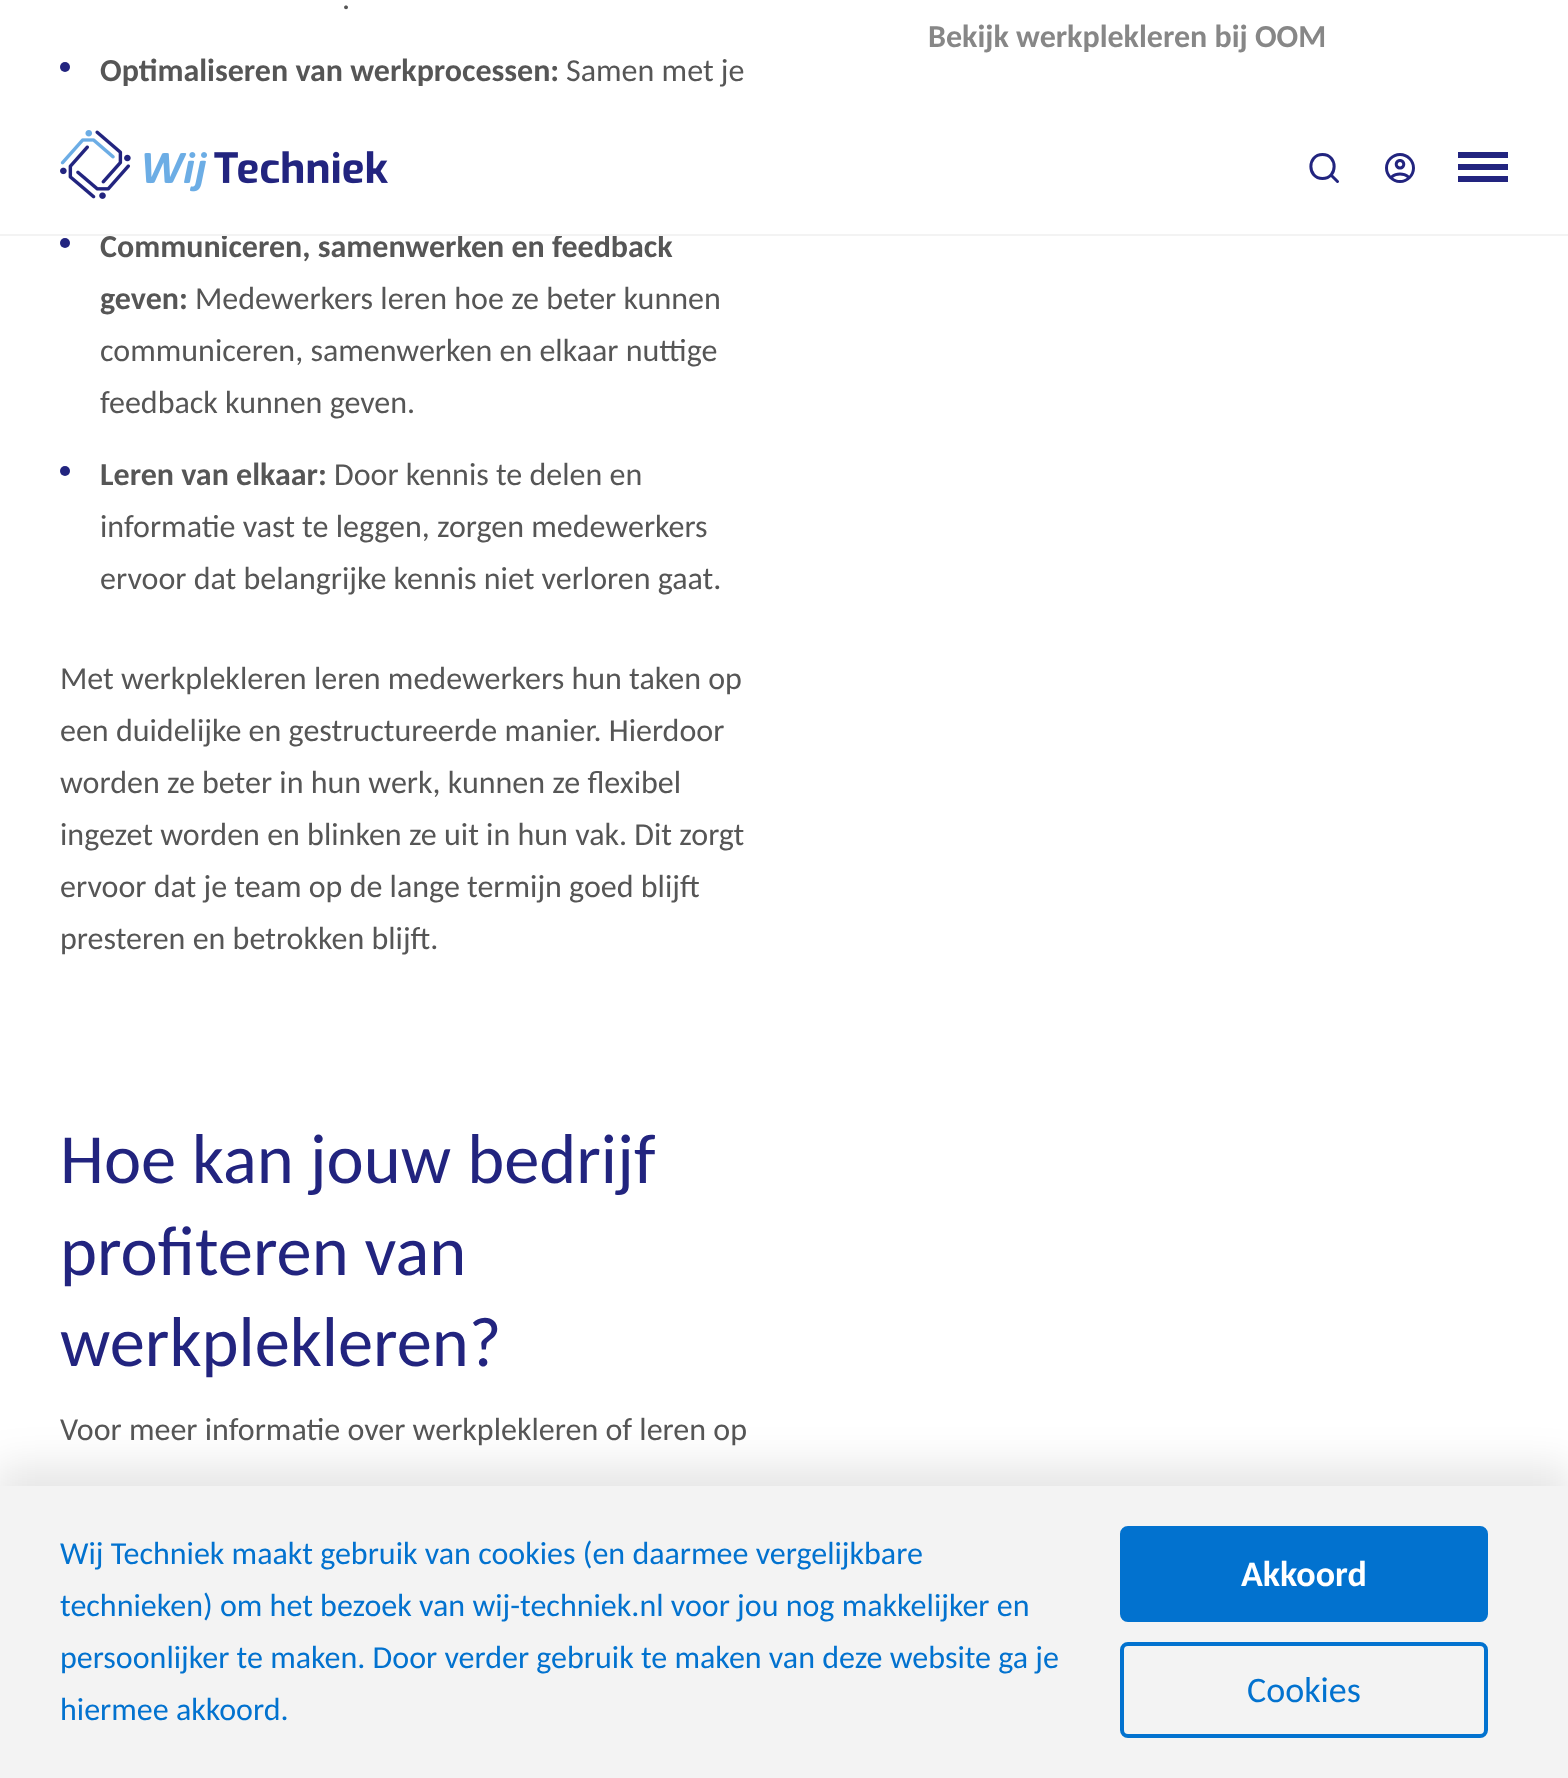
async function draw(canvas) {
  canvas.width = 1568;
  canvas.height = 1778;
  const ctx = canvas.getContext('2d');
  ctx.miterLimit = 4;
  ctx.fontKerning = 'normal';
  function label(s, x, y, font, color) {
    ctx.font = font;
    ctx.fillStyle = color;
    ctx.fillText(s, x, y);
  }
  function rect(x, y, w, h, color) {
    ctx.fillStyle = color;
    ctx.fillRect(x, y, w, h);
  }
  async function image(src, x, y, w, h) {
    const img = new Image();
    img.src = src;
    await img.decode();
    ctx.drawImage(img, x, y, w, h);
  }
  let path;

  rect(0, 0, 1568, 1778, '#fff');
  label('.', 342, 9, '32px Carlito', '#565656');
  ctx.fillStyle = '#22247f';
  ctx.beginPath();
  ctx.arc(65, 67, 5, 0, 2 * Math.PI);
  ctx.fill();
  label('Optimaliseren van werkprocessen:', 100, 81, 'bold 32px Carlito', '#565656');
  label('Samen met je', 566, 81, '32px Carlito', '#565656');
  ctx.fillStyle = '#22247f';
  ctx.beginPath();
  ctx.arc(65, 243, 5, 0, 2 * Math.PI);
  ctx.fill();
  label('Communiceren, samenwerken en feedback', 100, 257, 'bold 32px Carlito', '#565656');
  label('geven:', 100, 309, 'bold 32px Carlito', '#565656');
  label('Medewerkers leren hoe ze beter kunnen', 195, 309, '32px Carlito', '#565656');
  label('communiceren, samenwerken en elkaar nuttige', 100, 361, '32px Carlito', '#565656');
  label('feedback kunnen geven.', 100, 413, '32px Carlito', '#565656');
  ctx.fillStyle = '#22247f';
  ctx.beginPath();
  ctx.arc(65, 471, 5, 0, 2 * Math.PI);
  ctx.fill();
  label('Leren van elkaar:', 100, 485, 'bold 32px Carlito', '#565656');
  label('Door kennis te delen en', 334, 485, '32px Carlito', '#565656');
  label('informatie vast te leggen, zorgen medewerkers', 100, 537, '32px Carlito', '#565656');
  label('ervoor dat belangrijke kennis niet verloren gaat.', 100, 589, '32px Carlito', '#565656');
  label('Met werkplekleren leren medewerkers hun taken op', 60, 689, '32px Carlito', '#565656');
  label('een duidelijke en gestructureerde manier. Hierdoor', 60, 741, '32px Carlito', '#565656');
  label('worden ze beter in hun werk, kunnen ze flexibel', 60, 793, '32px Carlito', '#565656');
  label('ingezet worden en blinken ze uit in hun vak. Dit zorgt', 60, 845, '32px Carlito', '#565656');
  label('ervoor dat je team op de lange termijn goed blijft', 60, 897, '32px Carlito', '#565656');
  label('presteren en betrokken blijft.', 60, 949, '32px Carlito', '#565656');
  label('Bekijk werkplekleren bij OOM', 928, 47, 'bold 32px Carlito', '#878787');
  label('Hoe kan jouw bedrijf', 60, 1183, '70.5px Carlito', '#22247f');
  label('profiteren van', 60, 1275, '70.5px Carlito', '#22247f');
  label('werkplekleren?', 60, 1366, '70.5px Carlito', '#22247f');
  label('Voor meer informatie over werkplekleren of leren op', 60, 1440, '32px Carlito', '#565656');
  rect(0, 234, 1568, 2, '#f3f3f3');
  await image('assets/img1.png', 60, 130, 328, 69);
  path = new Path2D('M1322.5 178.5C1338 178.5 1338 154.5 1322.5 154.5C1307 154.5 1307 178.5 1322.5 178.5ZM1337.5 181.5L1331 175');
  ctx.strokeStyle = '#22247f';
  ctx.lineWidth = 3;
  ctx.lineCap = 'round';
  ctx.lineJoin = 'round';
  ctx.stroke(path);
  await image('assets/img2.png', 1385, 153, 30, 30);
  rect(1458, 164, 50, 6, '#22247f');
  rect(1458, 152, 50, 6, '#22247f');
  rect(1458, 176, 50, 6, '#22247f');
  ctx.fillStyle = '#0000001a';
  ctx.filter = 'blur(20px)';
  ctx.beginPath();
  ctx.rect(-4, 1466, 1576, 300);
  ctx.fill();
  ctx.filter = 'none';
  rect(0, 1486, 1568, 292, '#f3f3f3');
  label('Wij Techniek maakt gebruik van cookies (en daarmee vergelijkbare', 60, 1564, '32px Carlito', '#0272cf');
  label('technieken) om het bezoek van wij-techniek.nl voor jou nog makkelijker en', 60, 1616, '32px Carlito', '#0272cf');
  label('persoonlijker te maken. Door verder gebruik te maken van deze website ga je', 60, 1668, '32px Carlito', '#0272cf');
  label('hiermee akkoord.', 60, 1720, '32px Carlito', '#0272cf');
  ctx.beginPath();
  ctx.roundRect(1122, 1528, 364, 92, 6);
  ctx.fill();
  ctx.strokeStyle = '#0272cf';
  ctx.lineWidth = 4;
  ctx.lineJoin = 'miter';
  ctx.stroke();
  label('Akkoord', 1241, 1586, 'bold 36px Carlito', '#fff');
  ctx.beginPath();
  ctx.roundRect(1122, 1644, 364, 92, 6);
  ctx.stroke();
  label('Cookies', 1247, 1702, '36px Carlito', '#0272cf');
}

draw(document.querySelector('canvas'));
